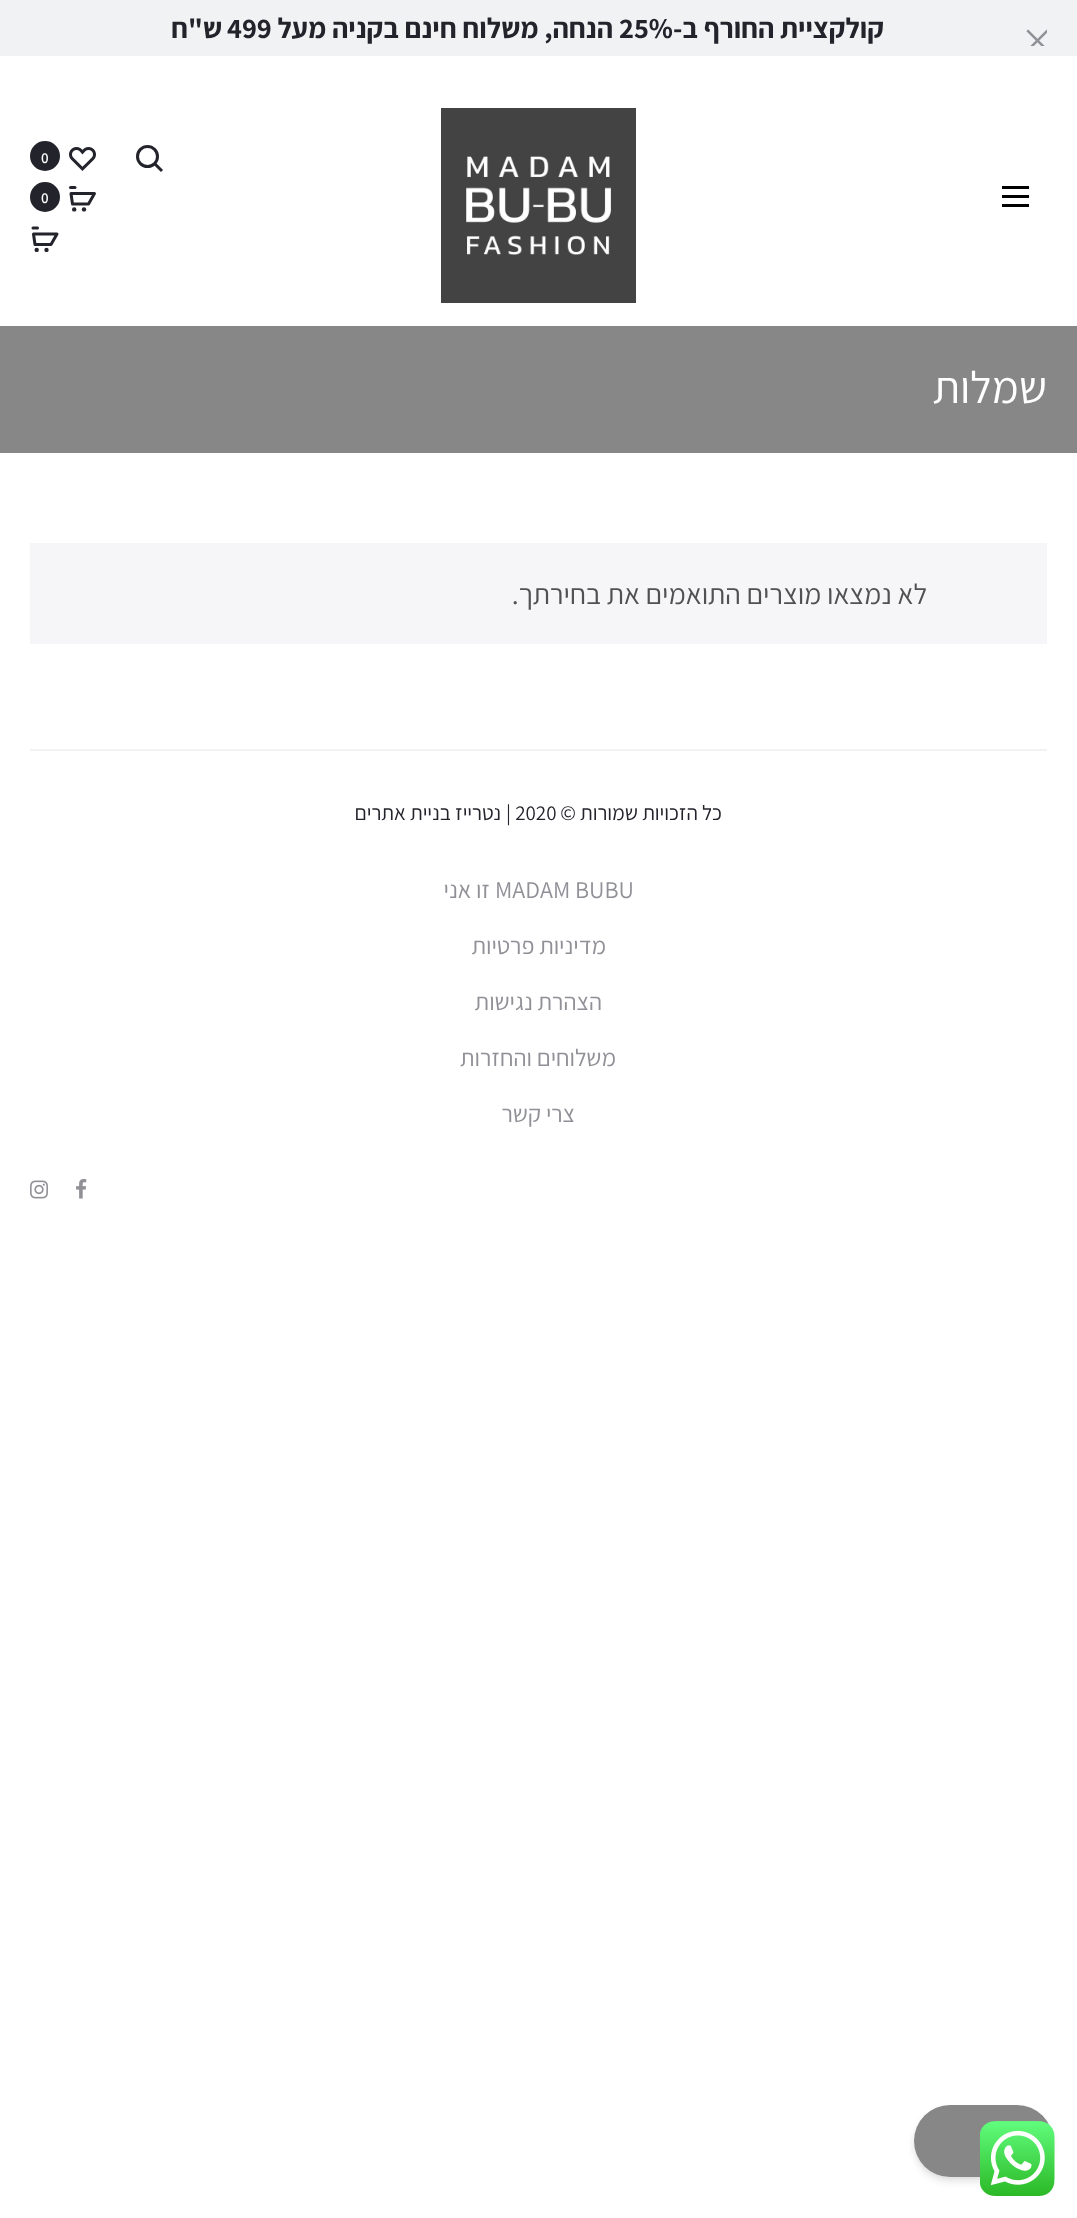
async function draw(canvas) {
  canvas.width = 1077;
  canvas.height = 2218;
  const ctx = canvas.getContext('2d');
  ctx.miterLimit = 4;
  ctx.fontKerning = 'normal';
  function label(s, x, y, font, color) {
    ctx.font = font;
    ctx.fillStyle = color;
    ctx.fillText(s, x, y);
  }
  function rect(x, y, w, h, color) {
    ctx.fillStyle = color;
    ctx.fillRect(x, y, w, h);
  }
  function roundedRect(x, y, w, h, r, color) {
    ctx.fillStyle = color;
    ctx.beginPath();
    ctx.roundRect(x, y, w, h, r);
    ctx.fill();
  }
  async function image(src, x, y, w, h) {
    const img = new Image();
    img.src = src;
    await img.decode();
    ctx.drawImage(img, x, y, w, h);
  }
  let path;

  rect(0, 0, 1077, 2218, '#fff');
  rect(0, 0, 1077, 56, '#f1f2f4');
  await image('assets/img1.png', 1026, 29, 21, 17);
  ctx.direction = 'rtl';
  label('קולקציית החורף ב-', 884, 38, 'bold 28.5px Assistant', '#23232c');
  ctx.direction = 'ltr';
  label('25%', 619, 38, 'bold 28.5px Assistant', '#23232c');
  ctx.direction = 'rtl';
  label('הנחה, משלוח חינם בקניה מעל', 613, 38, 'bold 28.5px Assistant', '#23232c');
  ctx.direction = 'ltr';
  label('499', 227, 38, 'bold 28.5px Assistant', '#23232c');
  ctx.direction = 'rtl';
  label('ש"ח', 222, 38, 'bold 28.5px Assistant', '#23232c');
  rect(1002, 195, 27, 3, '#000');
  rect(1002, 186, 27, 3, '#000');
  rect(1002, 204, 27, 3, '#000');
  await image('assets/img2.png', 441, 108, 195, 195);
  ctx.beginPath();
  ctx.arc(147.5, 156.5, 10, 0, 2 * Math.PI);
  ctx.strokeStyle = '#23232c';
  ctx.lineWidth = 3;
  ctx.stroke();
  path = new Path2D('M154.5 163.5L162 171');
  ctx.stroke(path);
  await image('assets/img3.png', 69, 147, 27, 24);
  ctx.fillStyle = '#23232c';
  ctx.beginPath();
  ctx.arc(45, 156, 15, 0, 2 * Math.PI);
  ctx.fill();
  ctx.direction = 'ltr';
  label('0', 41, 163, '600 15px Assistant', '#fff');
  path = new Path2D('M71 193.5L72.5 204H88.5L94.5 193.5Z');
  ctx.lineJoin = 'round';
  ctx.stroke(path);
  ctx.fillStyle = '#23232c';
  ctx.beginPath();
  ctx.arc(74.2, 209.4, 2.2, 0, 2 * Math.PI);
  ctx.fill();
  ctx.beginPath();
  ctx.arc(84, 209.4, 2.2, 0, 2 * Math.PI);
  ctx.fill();
  path = new Path2D('M70.5 187.5H75');
  ctx.lineCap = 'round';
  ctx.lineJoin = 'miter';
  ctx.stroke(path);
  ctx.beginPath();
  ctx.arc(45, 197, 15, 0, 2 * Math.PI);
  ctx.fill();
  label('0', 41, 203, '600 15px Assistant', '#fff');
  path = new Path2D('M33.5 234L35 244.5H51L57 234Z');
  ctx.lineCap = 'butt';
  ctx.lineJoin = 'round';
  ctx.stroke(path);
  ctx.fillStyle = '#23232c';
  ctx.beginPath();
  ctx.arc(36.7, 249.9, 2.2, 0, 2 * Math.PI);
  ctx.fill();
  ctx.beginPath();
  ctx.arc(46.5, 249.9, 2.2, 0, 2 * Math.PI);
  ctx.fill();
  path = new Path2D('M33 228H37.5');
  ctx.lineCap = 'round';
  ctx.lineJoin = 'miter';
  ctx.stroke(path);
  rect(0, 326, 1077, 127, '#878787');
  ctx.direction = 'rtl';
  label('שמלות', 1047, 403, '45px Assistant', '#fff');
  rect(30, 543, 1017, 101, '#f6f5f8');
  label('לא נמצאו מוצרים התואמים את בחירתך.', 927, 604, '28.5px Assistant', '#515151');
  rect(30, 749, 1017, 2, '#f1f2f4');
  label('כל הזכויות שמורות ©', 722, 820, '21px Assistant', '#23232c');
  ctx.direction = 'ltr';
  label('| 2020', 506, 820, '21px Assistant', '#23232c');
  ctx.direction = 'rtl';
  label('נטרייז בניית אתרים', 501, 820, '21px Assistant', '#23232c');
  ctx.direction = 'ltr';
  label('MADAM BUBU', 495, 898, '24px Assistant', '#909097');
  ctx.direction = 'rtl';
  label('זו אני', 490, 898, '24px Assistant', '#909097');
  label('מדיניות פרטיות', 606, 954, '24px Assistant', '#909097');
  label('הצהרת נגישות', 602, 1010, '24px Assistant', '#909097');
  label('משלוחים והחזרות', 616, 1066, '24px Assistant', '#909097');
  label('צרי קשר', 575, 1122, '24px Assistant', '#909097');
  await image('assets/img4.png', 76, 1179, 11, 20);
  await image('assets/img5.png', 30, 1180, 18, 19);
  ctx.fillStyle = '#0000000f';
  ctx.filter = 'blur(3px)';
  ctx.beginPath();
  ctx.roundRect(915, 2109, 137, 69, 34.5);
  ctx.fill();
  ctx.filter = 'none';
  ctx.fillStyle = '#0000001a';
  ctx.filter = 'blur(4.5px)';
  ctx.beginPath();
  ctx.roundRect(915, 2112, 137, 69, 34.5);
  ctx.fill();
  ctx.filter = 'none';
  roundedRect(914, 2105, 139, 72, 36, '#878787');
  await image('assets/img6.png', 980, 2121, 75, 75);
}

draw(document.querySelector('canvas'));
